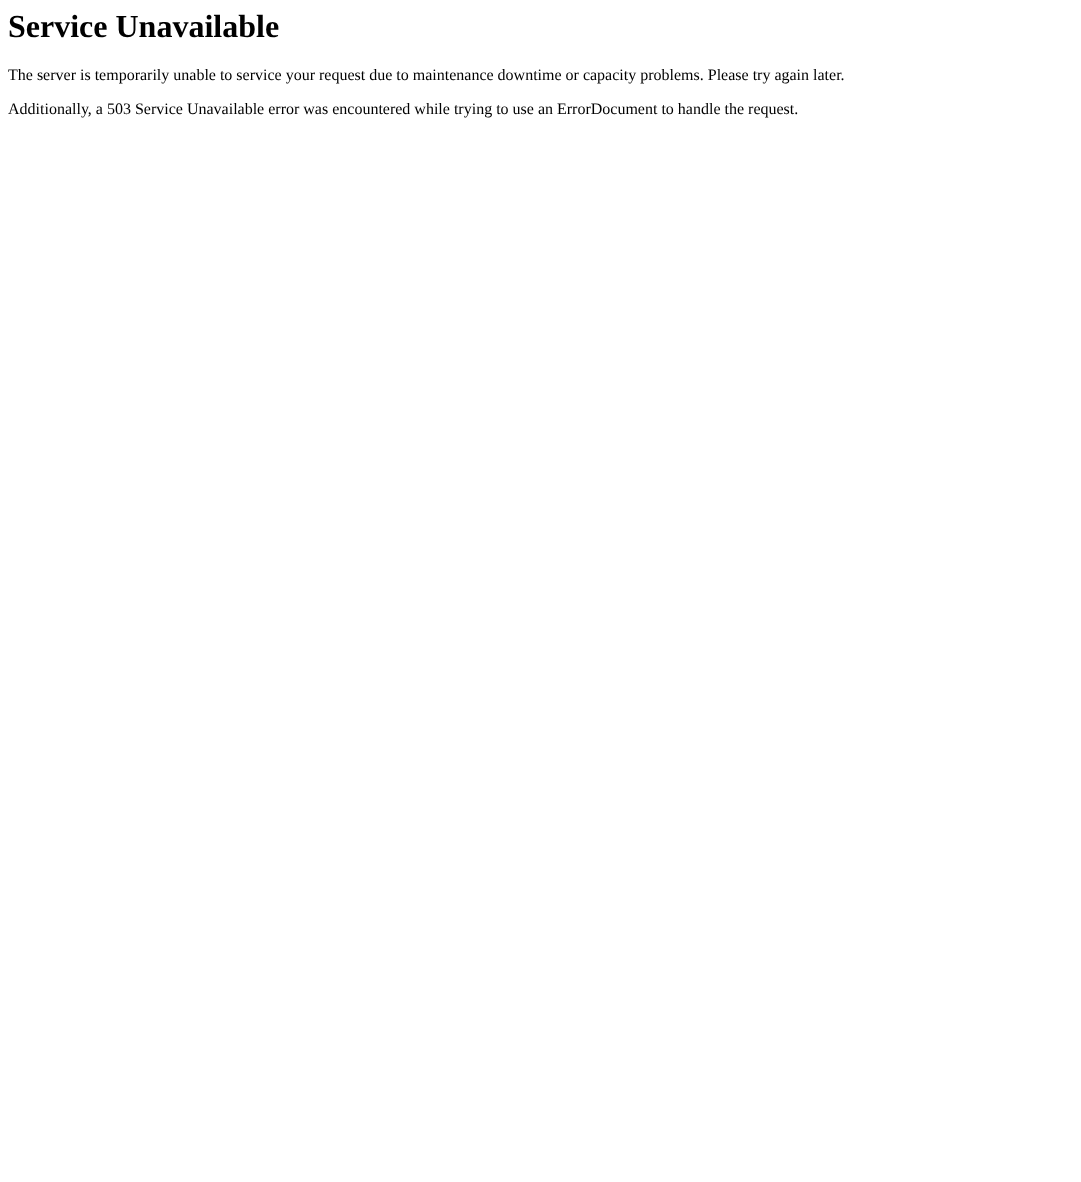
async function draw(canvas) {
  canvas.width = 1081;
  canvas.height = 1182;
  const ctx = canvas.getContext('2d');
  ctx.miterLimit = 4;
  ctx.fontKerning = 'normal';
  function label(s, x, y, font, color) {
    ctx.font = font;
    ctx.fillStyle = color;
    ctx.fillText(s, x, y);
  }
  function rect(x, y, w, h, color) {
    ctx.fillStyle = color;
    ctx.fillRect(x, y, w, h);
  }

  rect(0, 0, 1081, 1182, '#fff');
  label('Service Unavailable', 8, 37, 'bold 32px Liberation Serif', '#000');
  label('The server is temporarily unable to service your request due to maintenance downtime or capacity problems. Please try again later.', 8, 80, '16px Liberation Serif', '#000');
  label('Additionally, a 503 Service Unavailable error was encountered while trying to use an ErrorDocument to handle the request.', 8, 114, '16px Liberation Serif', '#000');
}

draw(document.querySelector('canvas'));
